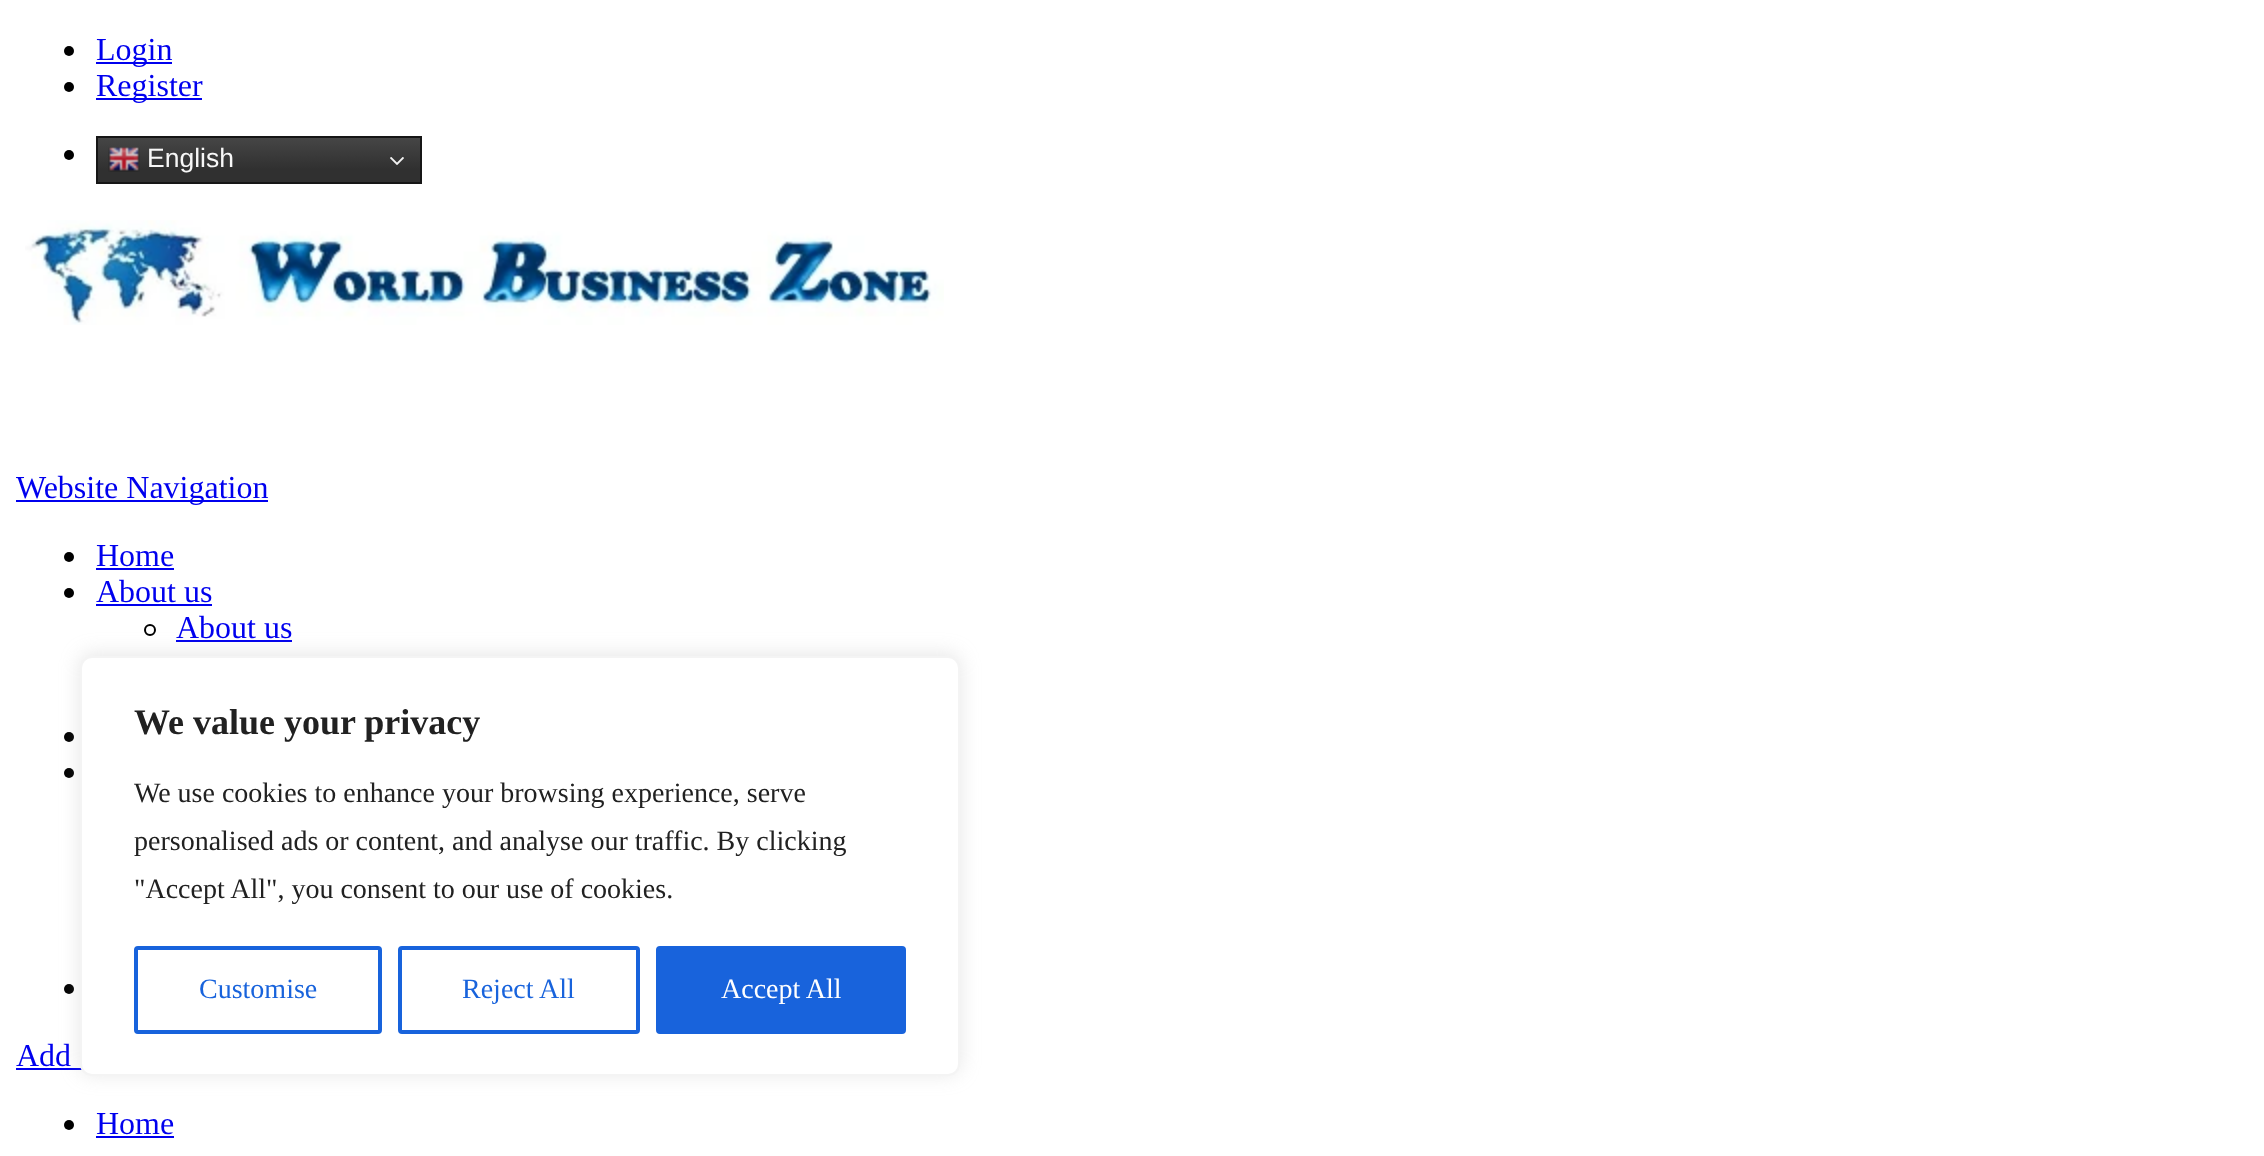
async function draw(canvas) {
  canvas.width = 2264;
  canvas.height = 1156;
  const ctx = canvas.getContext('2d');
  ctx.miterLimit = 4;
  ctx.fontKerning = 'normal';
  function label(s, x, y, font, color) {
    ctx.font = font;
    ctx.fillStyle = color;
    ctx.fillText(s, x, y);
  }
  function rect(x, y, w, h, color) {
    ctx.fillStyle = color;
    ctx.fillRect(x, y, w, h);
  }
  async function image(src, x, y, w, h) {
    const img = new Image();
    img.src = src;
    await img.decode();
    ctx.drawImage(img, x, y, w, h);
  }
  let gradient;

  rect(0, 0, 2264, 1156, '#fff');
  ctx.fillStyle = '#000';
  ctx.beginPath();
  ctx.arc(69, 51, 5, 0, 2 * Math.PI);
  ctx.fill();
  rect(96, 62, 76, 2, '#00e');
  label('Login', 96, 60, '32px Liberation Serif', '#00e');
  ctx.fillStyle = '#000';
  ctx.beginPath();
  ctx.arc(69, 87, 5, 0, 2 * Math.PI);
  ctx.fill();
  rect(96, 98, 106, 2, '#00e');
  label('Register', 96, 96, '32px Liberation Serif', '#00e');
  ctx.fillStyle = '#000';
  ctx.beginPath();
  ctx.arc(69, 155, 5, 0, 2 * Math.PI);
  ctx.fill();
  gradient = ctx.createLinearGradient(259, 136, 259, 184);
  gradient.addColorStop(0, '#474747');
  gradient.addColorStop(0.7, '#303030');
  ctx.fillStyle = gradient;
  ctx.fillRect(98, 138, 322, 44);
  ctx.strokeStyle = '#161616';
  ctx.lineWidth = 2;
  ctx.strokeRect(97, 137, 324, 46);
  await image('assets/img1.png', 108, 147, 32, 25);
  label('English', 147, 167, '26.5px Liberation Sans', '#f7f7f7');
  await image('assets/img2.png', 390, 157, 14, 8);
  await image('assets/img3.png', 25, 220, 919, 105);
  rect(16, 500, 252, 2, '#00e');
  label('Website Navigation', 16, 498, '32px Liberation Serif', '#00e');
  ctx.fillStyle = '#000';
  ctx.beginPath();
  ctx.arc(69, 557, 5, 0, 2 * Math.PI);
  ctx.fill();
  label('Home', 96, 566, '32px Liberation Serif', '#00e');
  rect(96, 568, 78, 2, '#00e');
  ctx.fillStyle = '#000';
  ctx.beginPath();
  ctx.arc(69, 593, 5, 0, 2 * Math.PI);
  ctx.fill();
  label('About us', 96, 602, '32px Liberation Serif', '#00e');
  rect(96, 604, 116, 2, '#00e');
  ctx.beginPath();
  ctx.arc(150, 630, 5, 0, 2 * Math.PI);
  ctx.strokeStyle = '#000';
  ctx.stroke();
  label('About us', 176, 638, '32px Liberation Serif', '#00e');
  rect(176, 640, 116, 2, '#00e');
  ctx.fillStyle = '#000';
  ctx.beginPath();
  ctx.arc(69, 737, 5, 0, 2 * Math.PI);
  ctx.fill();
  ctx.beginPath();
  ctx.arc(69, 773, 5, 0, 2 * Math.PI);
  ctx.fill();
  ctx.beginPath();
  ctx.arc(69, 989, 5, 0, 2 * Math.PI);
  ctx.fill();
  label('Add', 16, 1066, '32px Liberation Serif', '#00e');
  rect(16, 1068, 66, 2, '#00e');
  ctx.fillStyle = '#000';
  ctx.beginPath();
  ctx.arc(69, 1125, 5, 0, 2 * Math.PI);
  ctx.fill();
  label('Home', 96, 1134, '32px Liberation Serif', '#00e');
  rect(96, 1136, 78, 2, '#00e');
  ctx.fillStyle = '#acabab4d';
  ctx.filter = 'blur(10px)';
  ctx.beginPath();
  ctx.roundRect(80, 654, 880, 420, 12);
  ctx.fill();
  ctx.filter = 'none';
  ctx.fillStyle = '#fff';
  ctx.beginPath();
  ctx.roundRect(81, 657, 878, 418, 11);
  ctx.fill();
  ctx.strokeStyle = '#f4f4f4';
  ctx.stroke();
  label('We value your privacy', 134, 734, 'bold 36px Liberation Serif', '#212121');
  label('We use cookies to enhance your browsing experience, serve', 134, 802, '28px Liberation Serif', '#212121');
  label('personalised ads or content, and analyse our traffic. By clicking', 134, 850, '28px Liberation Serif', '#212121');
  label('"Accept All", you consent to our use of cookies.', 134, 898, '28px Liberation Serif', '#212121');
  ctx.beginPath();
  ctx.roundRect(136, 948, 244, 84, 2);
  ctx.strokeStyle = '#1863dc';
  ctx.lineWidth = 4;
  ctx.stroke();
  label('Customise', 199, 998, '28px Liberation Serif', '#1863dc');
  ctx.beginPath();
  ctx.roundRect(400, 948, 238, 84, 2);
  ctx.stroke();
  label('Reject All', 462, 998, '28px Liberation Serif', '#1863dc');
  ctx.beginPath();
  ctx.roundRect(658, 948, 246, 84, 2);
  ctx.fill();
  ctx.stroke();
  label('Accept All', 721, 998, '28px Liberation Serif', '#fff');
}

draw(document.querySelector('canvas'));
